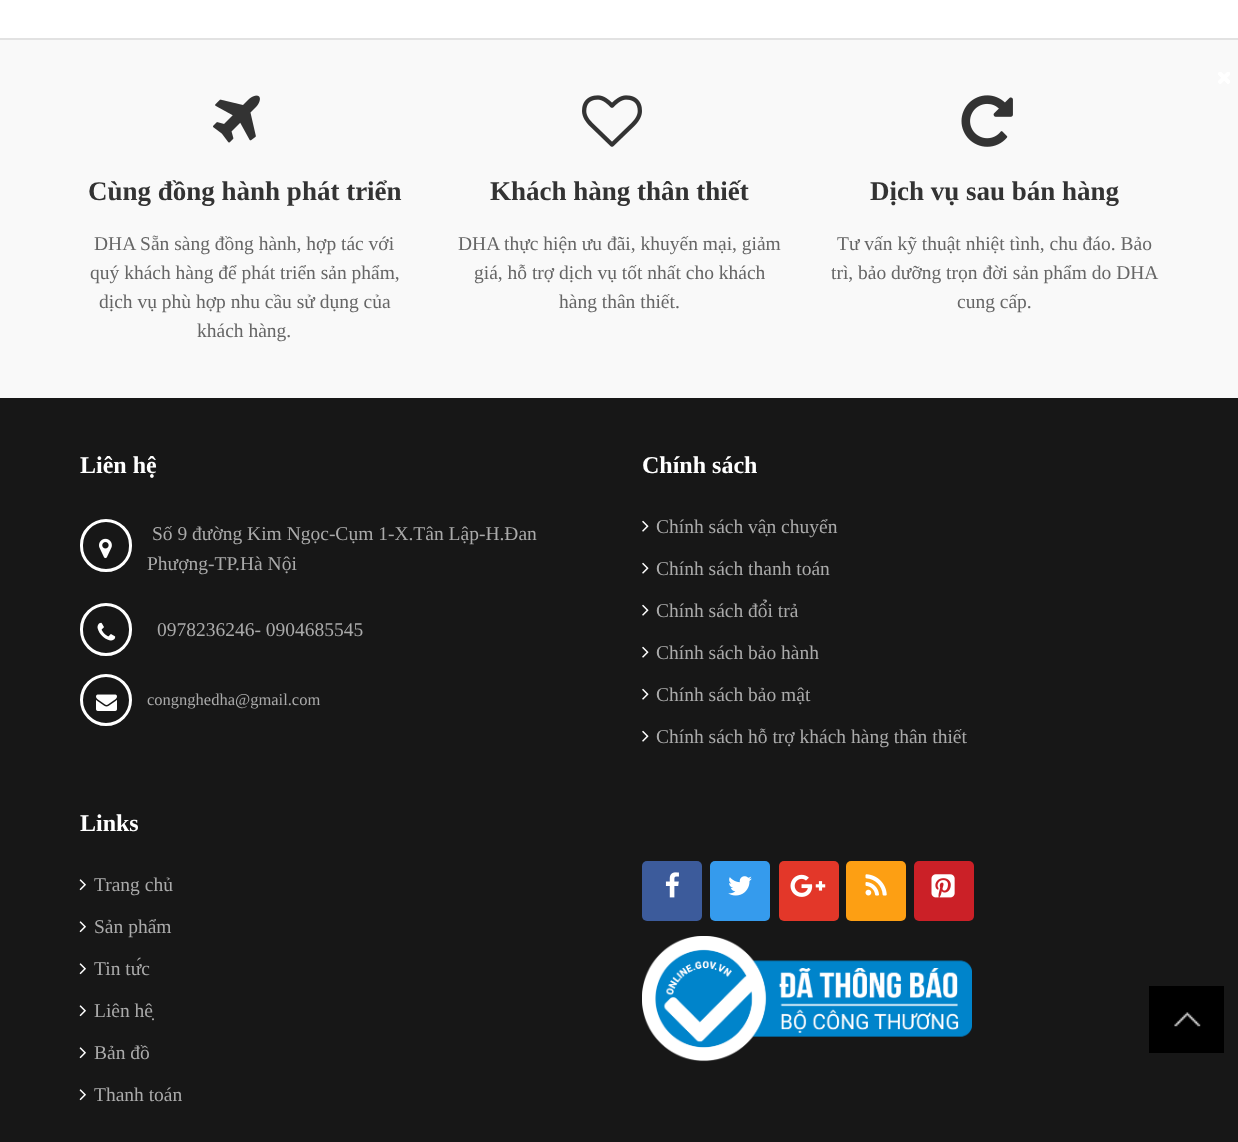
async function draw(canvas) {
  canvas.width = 1238;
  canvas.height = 1142;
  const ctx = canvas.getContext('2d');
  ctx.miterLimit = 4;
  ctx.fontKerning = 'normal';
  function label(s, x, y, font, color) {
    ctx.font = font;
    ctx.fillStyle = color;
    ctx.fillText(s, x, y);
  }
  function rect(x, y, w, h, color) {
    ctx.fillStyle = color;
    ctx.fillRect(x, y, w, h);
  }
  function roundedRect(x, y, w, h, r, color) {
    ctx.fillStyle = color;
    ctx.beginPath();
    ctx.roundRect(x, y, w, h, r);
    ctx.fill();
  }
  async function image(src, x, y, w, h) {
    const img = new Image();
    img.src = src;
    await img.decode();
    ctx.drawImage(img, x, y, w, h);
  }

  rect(0, 0, 1238, 1142, '#fff');
  rect(0, 40, 1238, 358, '#f9f9f9');
  await image('assets/img1.png', 1218, 72, 12, 12);
  rect(0, 38, 1238, 2, '#e2e2e2');
  await image('assets/img2.png', 213, 95, 47, 48);
  label('Cùng đồng hành phát triển', 88, 200, 'bold 27px Liberation Serif', '#333');
  label('DHA Sẵn sàng đồng hành, hợp tác với', 94, 250, '19.5px Liberation Serif', '#666');
  label('quý khách hàng để phát triển sản phẩm,', 90, 279, '19.5px Liberation Serif', '#666');
  label('dịch vụ phù hợp nhu cầu sử dụng của', 99, 308, '19.5px Liberation Serif', '#666');
  label('khách hàng.', 197, 337, '19.5px Liberation Serif', '#666');
  await image('assets/img3.png', 582, 95, 60, 52);
  label('Khách hàng thân thiết', 490, 200, 'bold 27px Liberation Serif', '#333');
  label('DHA thực hiện ưu đãi, khuyến mại, giảm', 458, 250, '19.5px Liberation Serif', '#666');
  label('giá, hỗ trợ dịch vụ tốt nhất cho khách', 474, 279, '19.5px Liberation Serif', '#666');
  label('hàng thân thiết.', 559, 308, '19.5px Liberation Serif', '#666');
  await image('assets/img4.png', 961, 95, 52, 52);
  label('Dịch vụ sau bán hàng', 870, 200, 'bold 27px Liberation Serif', '#333');
  label('Tư vấn kỹ thuật nhiệt tình, chu đáo. Bảo', 837, 250, '19.5px Liberation Serif', '#666');
  label('trì, bảo dưỡng trọn đời sản phẩm do DHA', 831, 279, '19.5px Liberation Serif', '#666');
  label('cung cấp.', 957, 308, '19.5px Liberation Serif', '#666');
  rect(0, 398, 1238, 744, '#171717');
  label('Liên hệ', 80, 473, 'bold 24px Liberation Serif', '#fff');
  ctx.beginPath();
  ctx.roundRect(81.5, 520.5, 49, 50, 24.5);
  ctx.strokeStyle = '#fff';
  ctx.lineWidth = 3;
  ctx.stroke();
  await image('assets/img5.png', 99, 538, 13, 21);
  label('Số 9 đường Kim Ngọc-Cụm 1-X.Tân Lập-H.Đan', 152, 540, '19.5px Liberation Serif', '#aaa');
  label('Phượng-TP.Hà Nội', 147, 570, '19.5px Liberation Serif', '#aaa');
  ctx.beginPath();
  ctx.roundRect(81.5, 604.5, 49, 50, 24.5);
  ctx.stroke();
  await image('assets/img6.png', 97, 622, 19, 19);
  label('0978236246- 0904685545', 157, 636, '19.5px Liberation Serif', '#aaa');
  ctx.beginPath();
  ctx.arc(106, 700, 24.5, 0, 2 * Math.PI);
  ctx.stroke();
  await image('assets/img7.png', 96, 694, 21, 17);
  label('congnghedha@gmail.com', 147, 705, '16.5px Liberation Serif', '#aaa');
  label('Chính sách', 642, 473, 'bold 24px Liberation Serif', '#fff');
  await image('assets/img8.png', 642, 520, 7, 12);
  label('Chính sách vận chuyển', 656, 533, '19.5px Liberation Serif', '#aaa');
  await image('assets/img8.png', 642, 562, 7, 12);
  label('Chính sách thanh toán', 656, 575, '19.5px Liberation Serif', '#aaa');
  await image('assets/img8.png', 642, 604, 7, 12);
  label('Chính sách đổi trả', 656, 617, '19.5px Liberation Serif', '#aaa');
  await image('assets/img8.png', 642, 646, 7, 12);
  label('Chính sách bảo hành', 656, 659, '19.5px Liberation Serif', '#aaa');
  await image('assets/img8.png', 642, 688, 7, 12);
  label('Chính sách bảo mật', 656, 701, '19.5px Liberation Serif', '#aaa');
  await image('assets/img8.png', 642, 730, 7, 12);
  label('Chính sách hỗ trợ khách hàng thân thiết', 656, 743, '19.5px Liberation Serif', '#aaa');
  label('Links', 80, 831, 'bold 24px Liberation Serif', '#fff');
  await image('assets/img9.png', 79, 879, 7, 12);
  label('Trang chủ', 94, 891, '19.5px Liberation Serif', '#aaa');
  await image('assets/img9.png', 79, 921, 7, 12);
  label('Sản phẩm', 94, 933, '19.5px Liberation Serif', '#aaa');
  await image('assets/img9.png', 79, 963, 7, 12);
  label('Tin tức', 94, 975, '19.5px Liberation Serif', '#aaa');
  await image('assets/img9.png', 79, 1005, 7, 12);
  label('Liên hệ', 94, 1017, '19.5px Liberation Serif', '#aaa');
  await image('assets/img9.png', 79, 1047, 7, 12);
  label('Bản đồ', 94, 1059, '19.5px Liberation Serif', '#aaa');
  await image('assets/img9.png', 79, 1089, 7, 12);
  label('Thanh toán', 94, 1101, '19.5px Liberation Serif', '#aaa');
  roundedRect(642, 861, 60, 60, 5, '#3c5b9b');
  await image('assets/img10.png', 665, 872, 14, 26);
  roundedRect(710, 861, 60, 60, 5, '#359bed');
  await image('assets/img11.png', 728, 876, 24, 20);
  roundedRect(779, 861, 60, 60, 5, '#e33729');
  await image('assets/img12.png', 790, 874, 36, 23);
  roundedRect(846, 861, 60, 60, 5, '#fd9f13');
  await image('assets/img13.png', 865, 874, 22, 22);
  roundedRect(914, 861, 60, 60, 5, '#cb2027');
  await image('assets/img14.png', 931, 874, 24, 24);
  await image('assets/img15.png', 642, 936, 330, 126);
  rect(1149, 986, 75, 67, '#000');
  await image('assets/img16.png', 1174, 1012, 27, 15);
}

draw(document.querySelector('canvas'));
